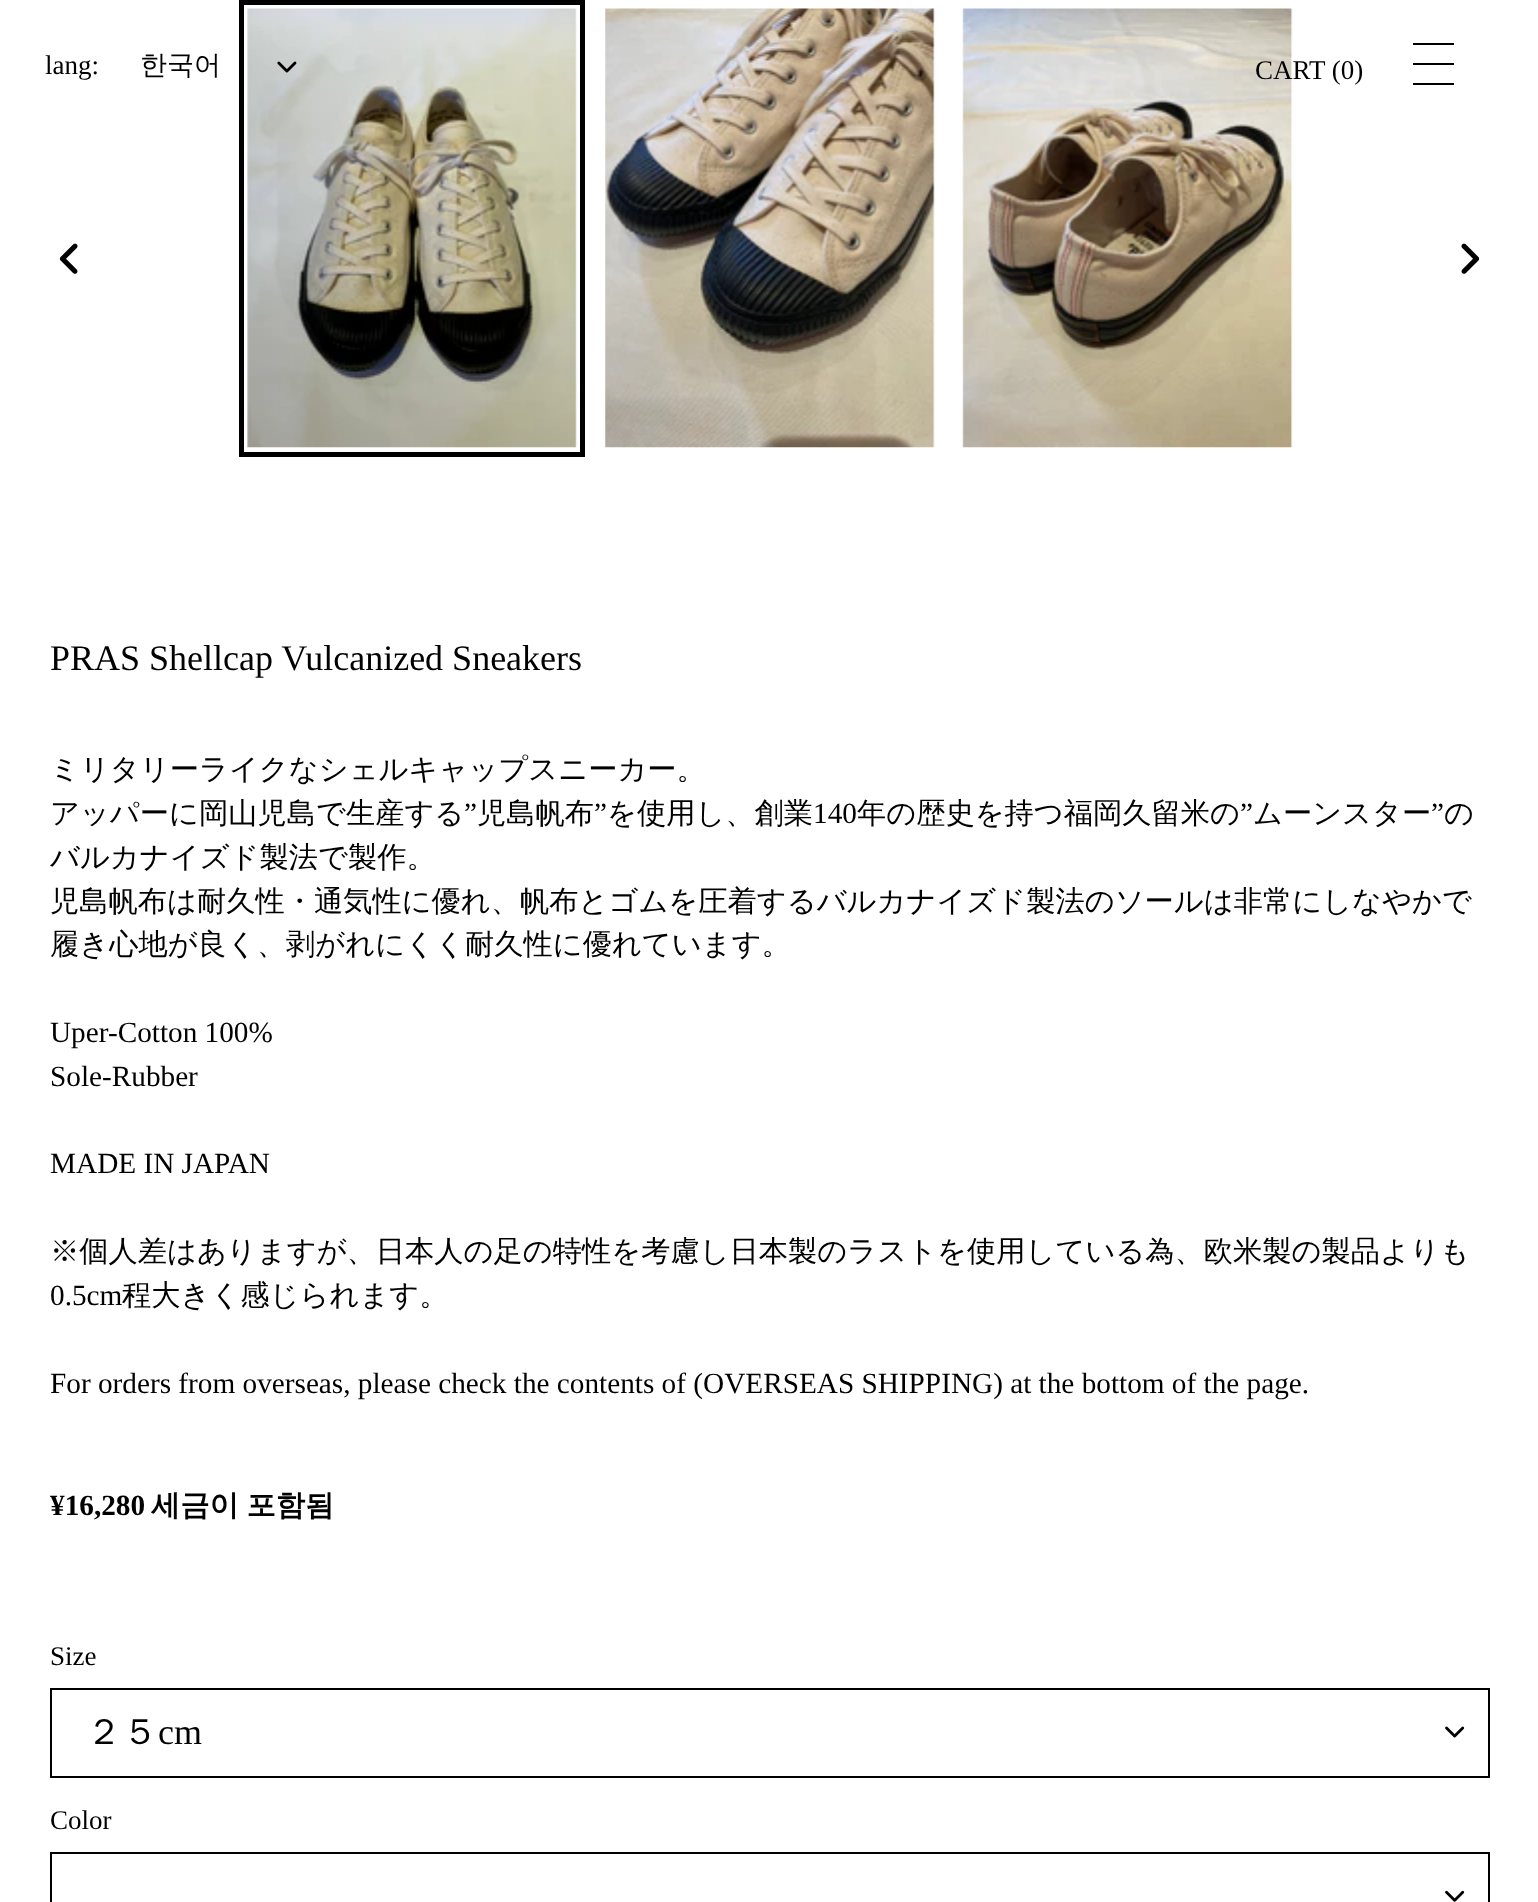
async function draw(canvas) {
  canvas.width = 1538;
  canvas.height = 1902;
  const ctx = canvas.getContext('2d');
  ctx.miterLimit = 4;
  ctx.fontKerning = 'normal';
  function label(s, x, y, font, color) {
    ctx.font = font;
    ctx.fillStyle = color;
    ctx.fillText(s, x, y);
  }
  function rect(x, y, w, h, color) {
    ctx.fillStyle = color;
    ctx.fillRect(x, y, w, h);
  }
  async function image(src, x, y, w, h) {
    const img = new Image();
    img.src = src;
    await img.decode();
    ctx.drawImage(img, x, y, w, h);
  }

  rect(0, 0, 1538, 1902, '#fff');
  label('lang:', 45, 74, '27px Liberation Serif', '#000');
  ctx.strokeStyle = '#000';
  ctx.lineWidth = 5;
  ctx.strokeRect(241.5, 2.5, 341, 452);
  await image('assets/img3.png', 247, 8, 330, 440);
  await image('assets/img1.png', 277, 61, 20, 12);
  label('한국어', 140, 74, '500 27px WenQuanYi Zen Hei', '#000');
  await image('assets/img5.png', 962, 8, 331, 440);
  label('CART (0)', 1255, 79, '27px Liberation Serif', '#000');
  rect(1413, 43, 41, 2, '#000');
  rect(1413, 63, 41, 2, '#000');
  rect(1413, 83, 41, 2, '#000');
  await image('assets/img2.png', 59, 243, 19, 31);
  await image('assets/img4.png', 605, 8, 330, 440);
  await image('assets/img6.png', 1461, 243, 19, 31);
  label('PRAS Shellcap Vulcanized Sneakers', 50, 670, '36px Liberation Serif', '#000');
  label('ミリタリーライクなシェルキャップスニーカー。', 50, 779, '500 29.25px WenQuanYi Zen Hei', '#000');
  label('アッパーに岡山児島で生産する', 50, 823, '500 29.25px WenQuanYi Zen Hei', '#000');
  label('”', 464, 823, '29.25px Liberation Serif', '#000');
  label('児島帆布', 477, 823, '500 29.25px WenQuanYi Zen Hei', '#000');
  label('”', 594, 823, '29.25px Liberation Serif', '#000');
  label('を使用し、創業', 607, 823, '500 29.25px WenQuanYi Zen Hei', '#000');
  label('140', 813, 823, '29.25px Liberation Serif', '#000');
  label('年の歴史を持つ福岡久留米の', 857, 823, '500 29.25px WenQuanYi Zen Hei', '#000');
  label('”', 1240, 823, '29.25px Liberation Serif', '#000');
  label('ムーンスター', 1253, 823, '500 29.25px WenQuanYi Zen Hei', '#000');
  label('”', 1431, 823, '29.25px Liberation Serif', '#000');
  label('の', 1444, 823, '500 29.25px WenQuanYi Zen Hei', '#000');
  label('バルカナイズド製法で製作。', 50, 867, '500 29.25px WenQuanYi Zen Hei', '#000');
  label('児島帆布は耐久性・通気性に優れ、帆布とゴムを圧着するバルカナイズド製法のソールは非常にしなやかで', 50, 911, '500 29.25px WenQuanYi Zen Hei', '#000');
  label('履き心地が良く、剥がれにくく耐久性に優れています。', 50, 954, '500 29.25px WenQuanYi Zen Hei', '#000');
  label('Uper-Cotton 100%', 50, 1042, '29.25px Liberation Serif', '#000');
  label('Sole-Rubber', 50, 1086, '29.25px Liberation Serif', '#000');
  label('MADE IN JAPAN', 50, 1173, '29.25px Liberation Serif', '#000');
  label('※個人差はありますが、日本人の足の特性を考慮し日本製のラストを使用している為、欧米製の製品よりも', 50, 1261, '500 29.25px WenQuanYi Zen Hei', '#000');
  label('0.5cm', 50, 1305, '29.25px Liberation Serif', '#000');
  label('程大きく感じられます。', 122, 1305, '500 29.25px WenQuanYi Zen Hei', '#000');
  label('For orders from overseas, please check the contents of (OVERSEAS SHIPPING) at the bottom of the page.', 50, 1393, '29.25px Liberation Serif', '#000');
  label('¥16,280', 50, 1515, 'bold 29.25px Liberation Serif', '#000');
  ctx.wordSpacing = '-1px';
  label('세금이 포함됨', 151, 1515, 'bold 29.25px WenQuanYi Zen Hei', '#000');
  ctx.wordSpacing = '0px';
  label('Size', 50, 1665, '27px Liberation Serif', '#000');
  await image('assets/img7.png', 1445, 1726, 20, 12);
  ctx.lineWidth = 2;
  ctx.strokeRect(51, 1689, 1438, 88);
  label('２５', 86, 1744, '500 36px WenQuanYi Zen Hei', '#000');
  label('cm', 158, 1744, '36px Liberation Serif', '#000');
  label('Color', 50, 1829, '27px Liberation Serif', '#000');
  await image('assets/img8.png', 1445, 1890, 20, 12);
  ctx.strokeRect(51, 1853, 1438, 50);
}

draw(document.querySelector('canvas'));
